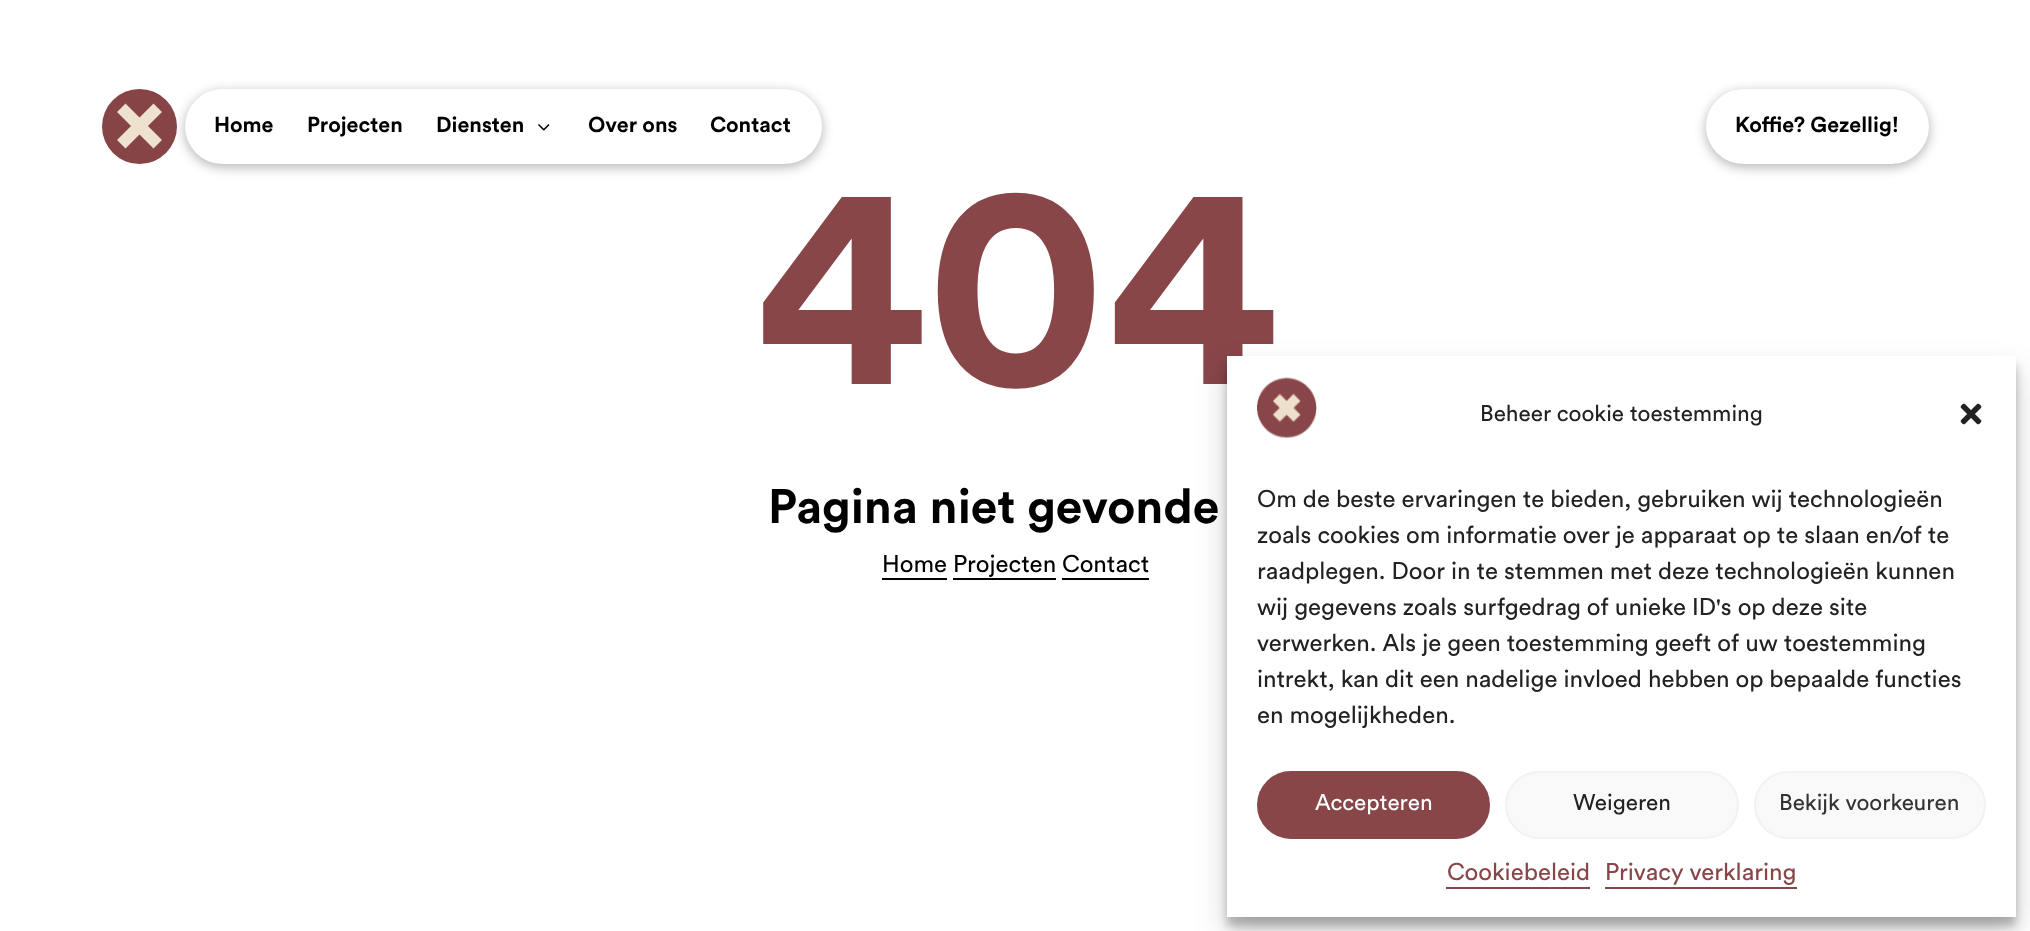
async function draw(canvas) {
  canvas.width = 2030;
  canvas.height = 931;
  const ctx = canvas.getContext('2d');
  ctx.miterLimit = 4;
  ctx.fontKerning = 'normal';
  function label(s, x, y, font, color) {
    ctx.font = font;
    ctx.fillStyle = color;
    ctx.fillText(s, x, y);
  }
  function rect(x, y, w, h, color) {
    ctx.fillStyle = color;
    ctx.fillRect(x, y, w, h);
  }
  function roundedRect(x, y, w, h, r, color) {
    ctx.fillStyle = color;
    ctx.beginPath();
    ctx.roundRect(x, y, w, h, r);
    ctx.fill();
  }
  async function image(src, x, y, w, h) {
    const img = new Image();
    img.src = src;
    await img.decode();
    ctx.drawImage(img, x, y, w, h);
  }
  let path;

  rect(0, 0, 2030, 931, '#fff');
  ctx.fillStyle = '#0000004d';
  ctx.filter = 'blur(6px)';
  ctx.beginPath();
  ctx.roundRect(185, 92, 637, 75, 37.5);
  ctx.fill();
  ctx.filter = 'none';
  ctx.fillStyle = '#864447';
  ctx.beginPath();
  ctx.arc(139.5, 126.5, 37.5, 0, 2 * Math.PI);
  ctx.fill();
  ctx.fillStyle = '#eee1ce';
  path = new Path2D('M159 112L153.5 106.5L139.5 120.5L125.5 106.5L120 112L134 126L120 140L125.5 145.5L139.5 131.5L153.5 145.5L159 140L145 126Z');
  ctx.fill(path);
  ctx.strokeStyle = '#eee1ce';
  ctx.lineWidth = 4.2;
  ctx.stroke(path);
  roundedRect(185, 89, 637, 75, 37.5, '#fff');
  label('Home', 214, 132, 'bold 21.5px Circular', '#000');
  label('Projecten', 307, 132, 'bold 21.5px Circular', '#000');
  label('Diensten', 436, 132, 'bold 21.5px Circular', '#000');
  await image('assets/img1.png', 538, 124, 12, 7);
  label('Over ons', 588, 132, 'bold 21.5px Circular', '#000');
  label('Contact', 710, 132, 'bold 21.5px Circular', '#000');
  ctx.fillStyle = '#0000004d';
  ctx.filter = 'blur(6px)';
  ctx.beginPath();
  ctx.roundRect(1706, 92, 223, 75, 37.5);
  ctx.fill();
  ctx.filter = 'none';
  roundedRect(1706, 89, 223, 75, 37.5, '#fff');
  label('Koffie? Gezellig!', 1735, 132, 'bold 21.5px Circular', '#000');
  label('404', 754, 384, 'bold 288px Circular', '#884649');
  label('Pagina niet gevonde', 768, 523, 'bold 48px Circular', '#000');
  label('Home Projecten Contact', 882, 572, '24px Circular', '#000');
  rect(882, 578, 65, 2, '#000');
  rect(953, 578, 103, 2, '#000');
  rect(1062, 578, 87, 2, '#000');
  ctx.fillStyle = '#0000003b';
  ctx.filter = 'blur(4.5px)';
  ctx.beginPath();
  ctx.rect(1227, 365, 789, 561);
  ctx.fill();
  ctx.filter = 'none';
  ctx.fillStyle = '#00000030';
  ctx.filter = 'blur(15px)';
  ctx.beginPath();
  ctx.rect(1227, 371, 789, 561);
  ctx.fill();
  ctx.filter = 'none';
  rect(1227, 356, 789, 561, '#fff');
  await image('assets/img2.png', 1257, 377, 60, 61);
  label('Beheer cookie toestemming', 1480, 421, '22.5px Circular', '#222');
  await image('assets/img3.png', 1960, 403, 22, 22);
  label('Om de beste ervaringen te bieden, gebruiken wij technologieën', 1257, 507, '24px Circular', '#222');
  label('zoals cookies om informatie over je apparaat op te slaan en/of te', 1257, 543, '24px Circular', '#222');
  label('raadplegen. Door in te stemmen met deze technologieën kunnen', 1257, 579, '24px Circular', '#222');
  label('wij gegevens zoals surfgedrag of unieke ID\'s op deze site', 1257, 615, '24px Circular', '#222');
  label('verwerken. Als je geen toestemming geeft of uw toestemming', 1257, 651, '24px Circular', '#222');
  label('intrekt, kan dit een nadelige invloed hebben op bepaalde functies', 1257, 687, '24px Circular', '#222');
  label('en mogelijkheden.', 1257, 723, '24px Circular', '#222');
  ctx.fillStyle = '#884649';
  ctx.beginPath();
  ctx.roundRect(1258, 772, 231, 66, 33);
  ctx.fill();
  ctx.strokeStyle = '#884649';
  ctx.lineWidth = 2;
  ctx.stroke();
  label('Accepteren', 1315, 810, '22.5px Circular', '#fff');
  ctx.fillStyle = '#f9f9f9';
  ctx.beginPath();
  ctx.roundRect(1506, 772, 232, 66, 33);
  ctx.fill();
  ctx.strokeStyle = '#f2f2f2';
  ctx.stroke();
  label('Weigeren', 1573, 810, '22.5px Circular', '#222');
  ctx.fillStyle = '#f9f9f9';
  ctx.beginPath();
  ctx.roundRect(1755, 772, 230, 66, 33);
  ctx.fill();
  ctx.stroke();
  label('Bekijk voorkeuren', 1779, 810, '22.5px Circular', '#333');
  label('Cookiebeleid', 1447, 880, '24px Circular', '#884649');
  rect(1446, 887, 144, 2, '#884649');
  label('Privacy verklaring', 1605, 880, '24px Circular', '#884649');
  rect(1605, 887, 192, 2, '#884649');
}

draw(document.querySelector('canvas'));
